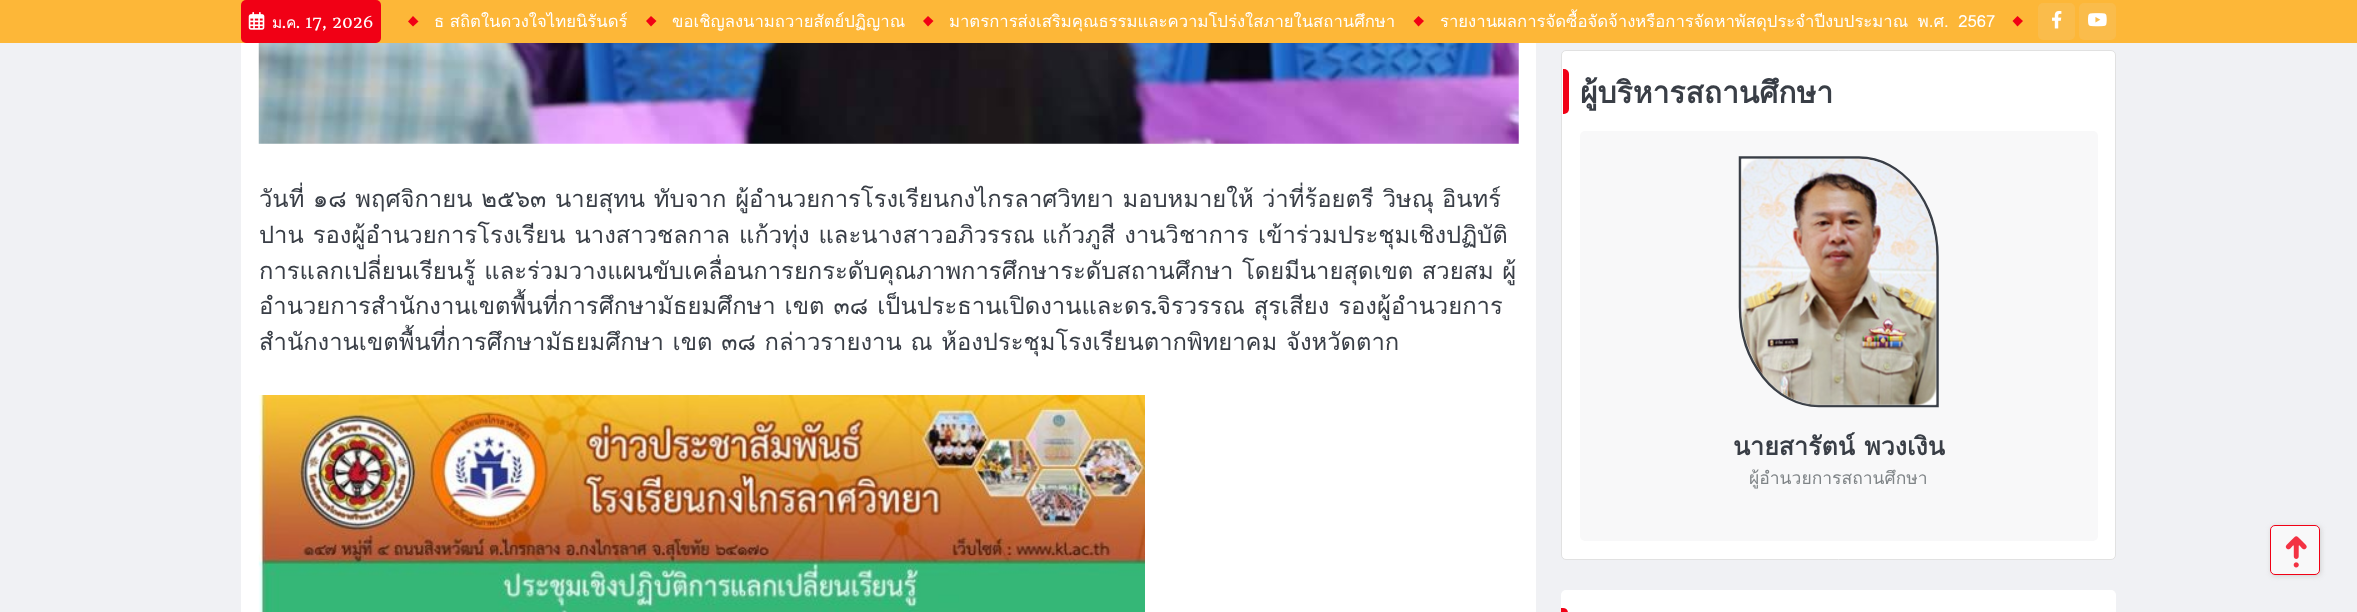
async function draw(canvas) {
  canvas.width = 2357;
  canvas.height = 612;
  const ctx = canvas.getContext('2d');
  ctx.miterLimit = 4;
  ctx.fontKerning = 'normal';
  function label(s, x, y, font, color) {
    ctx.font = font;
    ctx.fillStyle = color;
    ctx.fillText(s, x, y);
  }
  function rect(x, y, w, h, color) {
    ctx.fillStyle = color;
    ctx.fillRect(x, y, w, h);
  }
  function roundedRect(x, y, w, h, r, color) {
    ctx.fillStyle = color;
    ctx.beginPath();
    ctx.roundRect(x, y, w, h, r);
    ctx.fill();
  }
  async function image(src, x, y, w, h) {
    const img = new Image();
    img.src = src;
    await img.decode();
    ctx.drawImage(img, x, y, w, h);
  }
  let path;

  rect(0, 0, 2357, 612, '#f0f1f4');
  rect(0, 0, 2357, 43, '#fdb738');
  roundedRect(241, 0, 140, 43, 5, '#f10015');
  await image('assets/img1.png', 248, 12, 17, 18);
  label('ม', 272, 28, '15.5px Loma', '#fff');
  label('.', 282, 28, '15.5px HeadlandOne', '#fff');
  label('ค', 286, 28, '15.5px Loma', '#fff');
  label('. 17, 2026', 296, 28, '15.5px HeadlandOne', '#fff');
  ctx.fillStyle = '#f10015';
  path = new Path2D('M413 16L418.5 21.5L413 26.5L408 21.5Z');
  ctx.fill(path);
  label('ธ สถิตในดวงใจไทยนิรันดร์', 434, 27, '16.7px Loma', '#fff');
  ctx.fillStyle = '#f10015';
  path = new Path2D('M651 16L656.5 21L651 26.5L646 21Z');
  ctx.fill(path);
  label('ขอเชิญลงนามถวายสัตย์ปฏิญาณ', 672, 27, '16.7px Loma', '#fff');
  ctx.fillStyle = '#f10015';
  path = new Path2D('M928 16L933.5 21L928 26.5L923 21Z');
  ctx.fill(path);
  label('มาตรการส่งเสริมคุณธรรมและความโปร่งใสภายในสถานศึกษา', 949, 27, '16.7px Loma', '#fff');
  ctx.fillStyle = '#f10015';
  path = new Path2D('M1418.5 16L1424 21L1418.5 26.5L1413.5 21Z');
  ctx.fill(path);
  ctx.wordSpacing = '4px';
  label('รายงานผลการจัดซื้อจัดจ้างหรือการจัดหาพัสดุประจำปีงบประมาณ พ.ศ. 2567', 1440, 27, '16.7px Loma', '#fff');
  ctx.fillStyle = '#f10015';
  path = new Path2D('M2017.5 16L2023 21L2017.5 26.5L2012.5 21Z');
  ctx.fill(path);
  roundedRect(2038, 3, 37, 37, 5, '#fabc4b');
  await image('assets/img2.png', 2052, 10, 10, 19);
  roundedRect(2079, 3, 37, 37, 5, '#fabc4b');
  await image('assets/img3.png', 2088, 13, 19, 14);
  rect(241, 43, 1295, 569, '#fff');
  await image('assets/img4.png', 258, 43, 1261, 101);
  ctx.wordSpacing = '0.75px';
  label('วันที่ ๑๘ พฤศจิกายน ๒๕๖๓ นายสุทน ทับจาก ผู้อำนวยการโรงเรียนกงไกรลาศวิทยา มอบหมายให้', 259, 207, '23.8px Loma', '#393e46');
  ctx.wordSpacing = '1px';
  label('ว่าที่ร้อยตรี วิษณุ', 1262, 207, '23.8px Loma', '#393e46');
  ctx.wordSpacing = '0px';
  label('อินทร์', 1442, 207, '23.8px Loma', '#393e46');
  ctx.wordSpacing = '1px';
  label('ปาน รองผู้อำนวยการโรงเรียน นางสาวชลกาล แก้วทุ่ง และนางสาวอภิวรรณ', 259, 243, '23.8px Loma', '#393e46');
  label('แก้วภูสี งานวิชาการ เข้าร่วมประชุมเชิงปฏิบัติ', 1042, 243, '23.8px Loma', '#393e46');
  ctx.wordSpacing = '0.5px';
  label('การแลกเปลี่ยนเรียนรู้ และร่วมวางแผนขับเคลื่อนการยกระดับคุณภาพการศึกษาระดับสถานศึกษา โดยมีนายสุดเขต สวยสม ผู้', 259, 279, '23.8px Loma', '#393e46');
  ctx.wordSpacing = '1px';
  label('อำนวยการสำนักงานเขตพื้นที่การศึกษามัธยมศึกษา เขต ๓๘ เป็นประธานเปิดงานและดร', 259, 314, '23.8px Loma', '#393e46');
  ctx.wordSpacing = '0px';
  label('.', 1151, 314, '23.8px HeadlandOne', '#393e46');
  ctx.wordSpacing = '1px';
  label('จิรวรรณ สุรเสียง รองผู้อำนวยการ', 1157, 314, '23.8px Loma', '#393e46');
  ctx.wordSpacing = '0.75px';
  label('สำนักงานเขตพื้นที่การศึกษามัธยมศึกษา เขต ๓๘ กล่าวรายงาน ณ ห้องประชุมโรงเรียนตากพิทยาคม จังหวัดตาก', 259, 350, '23.8px Loma', '#393e46');
  await image('assets/img5.png', 258, 395, 887, 217);
  ctx.fillStyle = '#fff';
  ctx.beginPath();
  ctx.roundRect(1561.5, 50.5, 554, 509, 4.5);
  ctx.fill();
  ctx.strokeStyle = '#e1e1e1';
  ctx.stroke();
  ctx.wordSpacing = '0px';
  label('ผู้บริหารสถานศึกษา', 1580, 103, 'bold 30px Loma', '#393e46');
  ctx.fillStyle = '#f10015';
  ctx.beginPath();
  ctx.roundRect(1563, 69, 6, 45, [0, 5, 5, 0]);
  ctx.fill();
  roundedRect(1580, 131, 518, 410, 5, '#f8f8f9');
  path = new Path2D('M1740 157.5H1859C1902 157.5 1937.5 202 1937.5 257V406H1819C1775.5 406 1740 362 1740 307Z');
  ctx.strokeStyle = '#393e46';
  ctx.lineWidth = 2.5;
  ctx.stroke(path);
  await image('assets/img6.png', 1740, 158, 197, 248);
  ctx.wordSpacing = '1px';
  label('นายสารัตน์ พวงเงิน', 1733, 455, 'bold 25px Loma', '#393e46');
  ctx.wordSpacing = '0px';
  label('ผู้อำนวยการสถานศึกษา', 1749, 484, '17.5px Loma', '#7f8487');
  roundedRect(1561, 590, 555, 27, 5, '#fff');
  ctx.fillStyle = '#f10015';
  path = new Path2D('M1561 608H1563C1566 608 1568 610 1568 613V612C1568 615 1566 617 1563 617H1561Z');
  ctx.fill(path);
  ctx.fillStyle = '#d1d1d1';
  ctx.filter = 'blur(2.5px)';
  ctx.beginPath();
  ctx.roundRect(2271, 526, 50, 50, 5);
  ctx.fill();
  ctx.filter = 'none';
  ctx.fillStyle = '#f8f8f9';
  ctx.beginPath();
  ctx.roundRect(2270.5, 525.5, 49, 49, 4.5);
  ctx.fill();
  ctx.strokeStyle = '#f10015';
  ctx.lineWidth = 1;
  ctx.stroke();
  await image('assets/img7.png', 2285, 536, 22, 32);
}

draw(document.querySelector('canvas'));
